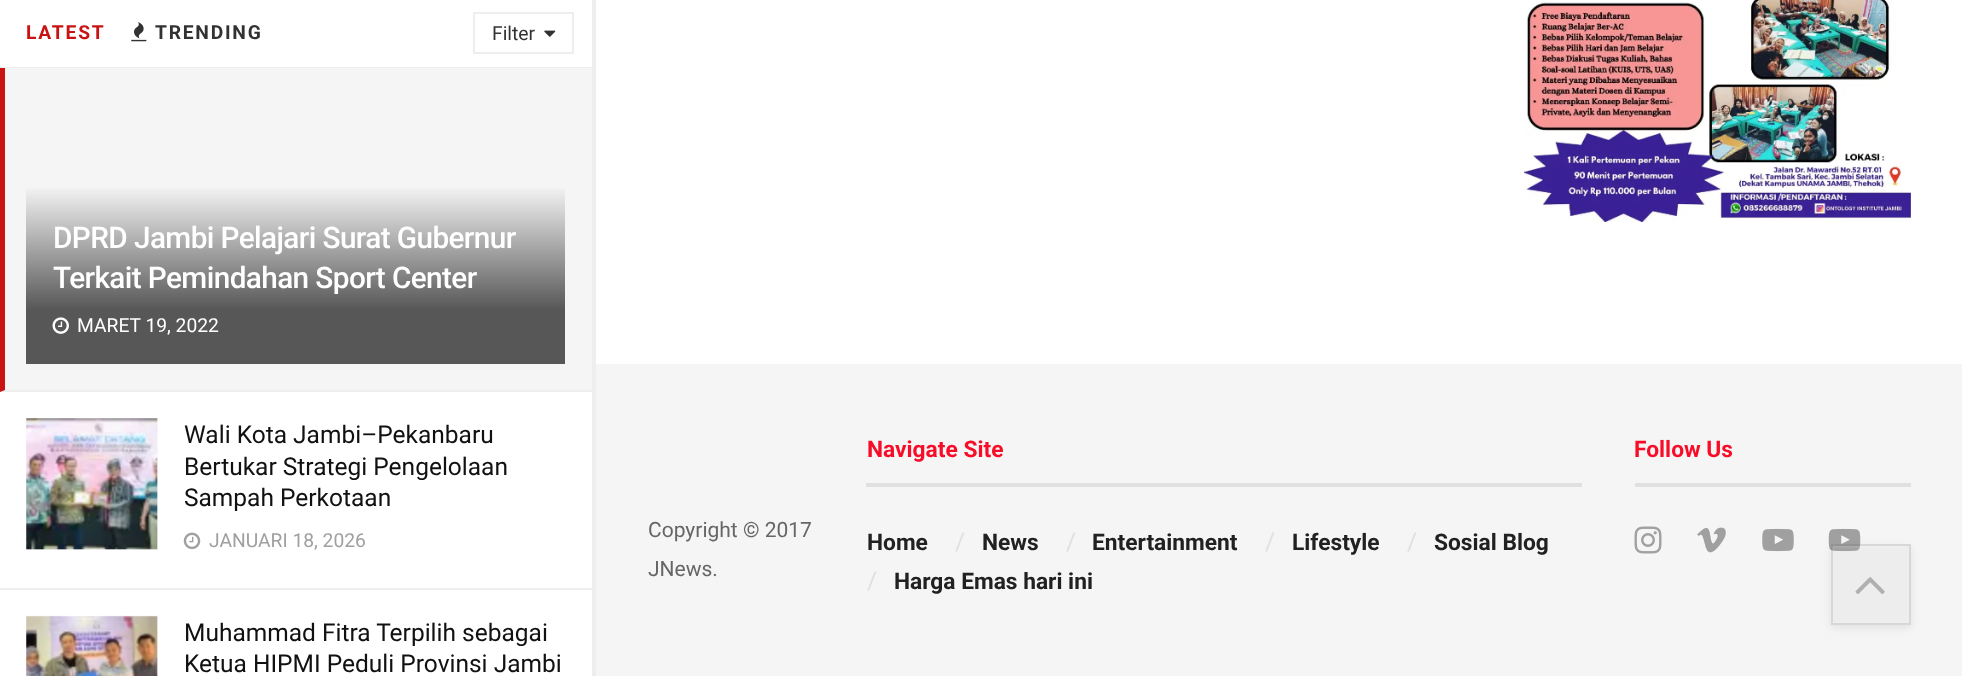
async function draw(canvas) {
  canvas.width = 1962;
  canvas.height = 676;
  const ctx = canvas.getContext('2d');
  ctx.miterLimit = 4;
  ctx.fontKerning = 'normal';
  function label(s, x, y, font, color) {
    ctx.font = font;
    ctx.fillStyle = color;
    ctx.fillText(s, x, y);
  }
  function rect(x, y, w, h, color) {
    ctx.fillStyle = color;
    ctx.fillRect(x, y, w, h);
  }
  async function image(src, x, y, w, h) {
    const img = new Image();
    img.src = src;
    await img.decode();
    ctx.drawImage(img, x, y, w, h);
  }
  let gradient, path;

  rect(0, 0, 1962, 676, '#fff');
  rect(592, 0, 4, 676, '#eee');
  rect(0, 67, 592, 1, '#eee');
  ctx.letterSpacing = '1.75px';
  label('LATEST', 26, 39, 'bold 19.25px Roboto', '#c91212');
  await image('assets/img1.png', 131, 22, 16, 20);
  label('TRENDING', 155, 39, 'bold 19.25px Roboto', '#323232');
  ctx.strokeStyle = '#eee';
  ctx.lineWidth = 2;
  ctx.strokeRect(474, 13, 99, 40);
  ctx.letterSpacing = '0px';
  label('Filter', 492, 40, '19.25px Roboto', '#323232');
  await image('assets/img2.png', 544, 30, 12, 7);
  rect(0, 68, 592, 324, '#f5f5f5');
  ctx.fillStyle = '#eee';
  path = new Path2D('M592 392H0L5 390H592Z');
  ctx.fill(path);
  ctx.fillStyle = '#c91212';
  path = new Path2D('M0 392V68H5V390Z');
  ctx.fill(path);
  gradient = ctx.createLinearGradient(296, 184, 296, 364);
  gradient.addColorStop(0, '#f7f7f7');
  gradient.addColorStop(0.7, '#575757');
  ctx.fillStyle = gradient;
  ctx.fillRect(26, 188, 539, 176);
  ctx.letterSpacing = '-0.6px';
  label('DPRD Jambi Pelajari Surat Gubernur', 53, 248, '500 29.75px Roboto', '#fff');
  label('Terkait Pemindahan Sport Center', 53, 288, '500 29.75px Roboto', '#fff');
  await image('assets/img3.png', 52, 317, 17, 17);
  ctx.letterSpacing = '0px';
  label('MARET 19, 2022', 77, 332, '19.25px Roboto', '#fff');
  rect(0, 588, 592, 2, '#eee');
  rect(26, 418, 132, 132, '#f7f7f7');
  await image('assets/img4.png', 26, 418, 132, 132);
  label('Wali Kota Jambi–Pekanbaru', 184, 443, '24.5px Roboto', '#111');
  label('Bertukar Strategi Pengelolaan', 184, 475, '24.5px Roboto', '#111');
  label('Sampah Perkotaan', 184, 506, '24.5px Roboto', '#111');
  await image('assets/img5.png', 183, 532, 18, 18);
  label('JANUARI 18, 2026', 209, 547, '19.25px Roboto', '#a0a0a0');
  rect(26, 616, 132, 60, '#f7f7f7');
  await image('assets/img6.png', 26, 615, 132, 61);
  label('Muhammad Fitra Terpilih sebagai', 184, 641, '24.5px Roboto', '#111');
  label('Ketua HIPMI Peduli Provinsi Jambi', 184, 672, '24.5px Roboto', '#111');
  await image('assets/img7.png', 1524, 0, 387, 223);
  rect(596, 364, 1366, 312, '#f5f5f5');
  label('Copyright © 2017', 648, 537, '21px Roboto', '#666');
  label('JNews.', 648, 576, '21px Roboto', '#666');
  rect(866, 483, 716, 4, '#e0e0e0');
  label('Navigate Site', 867, 457, 'bold 22.75px Roboto', '#f70d28');
  label('Sosial Blog', 1434, 550, 'bold 22.75px Roboto', '#212121');
  label('/', 867, 589, '24.5px Roboto', '#e0e0e0');
  label('Home', 867, 550, 'bold 22.75px Roboto', '#212121');
  label('/', 955, 550, '24.5px Roboto', '#e0e0e0');
  label('News', 982, 550, 'bold 22.75px Roboto', '#212121');
  label('/', 1066, 550, '24.5px Roboto', '#e0e0e0');
  label('Entertainment', 1092, 550, 'bold 22.75px Roboto', '#212121');
  label('/', 1265, 550, '24.5px Roboto', '#e0e0e0');
  label('Lifestyle', 1292, 550, 'bold 22.75px Roboto', '#212121');
  label('/', 1407, 550, '24.5px Roboto', '#e0e0e0');
  label('Harga Emas hari ini', 894, 589, 'bold 22.75px Roboto', '#212121');
  rect(1635, 483, 276, 4, '#e0e0e0');
  label('Follow Us', 1634, 457, 'bold 22.75px Roboto', '#f70d28');
  await image('assets/img8.png', 1634, 526, 28, 28);
  await image('assets/img9.png', 1697, 527, 29, 26);
  await image('assets/img10.png', 1762, 528, 32, 24);
  await image('assets/img11.png', 1828, 528, 33, 24);
  ctx.save();
  path = new Path2D('M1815 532H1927V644H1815ZM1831 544H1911V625H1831Z');
  ctx.clip(path, 'evenodd');
  ctx.fillStyle = '#00000014';
  ctx.filter = 'blur(5px)';
  ctx.beginPath();
  ctx.rect(1831, 548, 80, 80);
  ctx.fill();
  ctx.filter = 'none';
  ctx.restore();
  rect(1831, 544, 80, 81, '#b4b4b41f');
  ctx.strokeStyle = '#ffffff14';
  ctx.strokeRect(1833, 547, 75, 75);
  ctx.strokeStyle = '#00000017';
  ctx.strokeRect(1832, 545, 78, 79);
  await image('assets/img12.png', 1855, 577, 30, 17);
}

draw(document.querySelector('canvas'));
